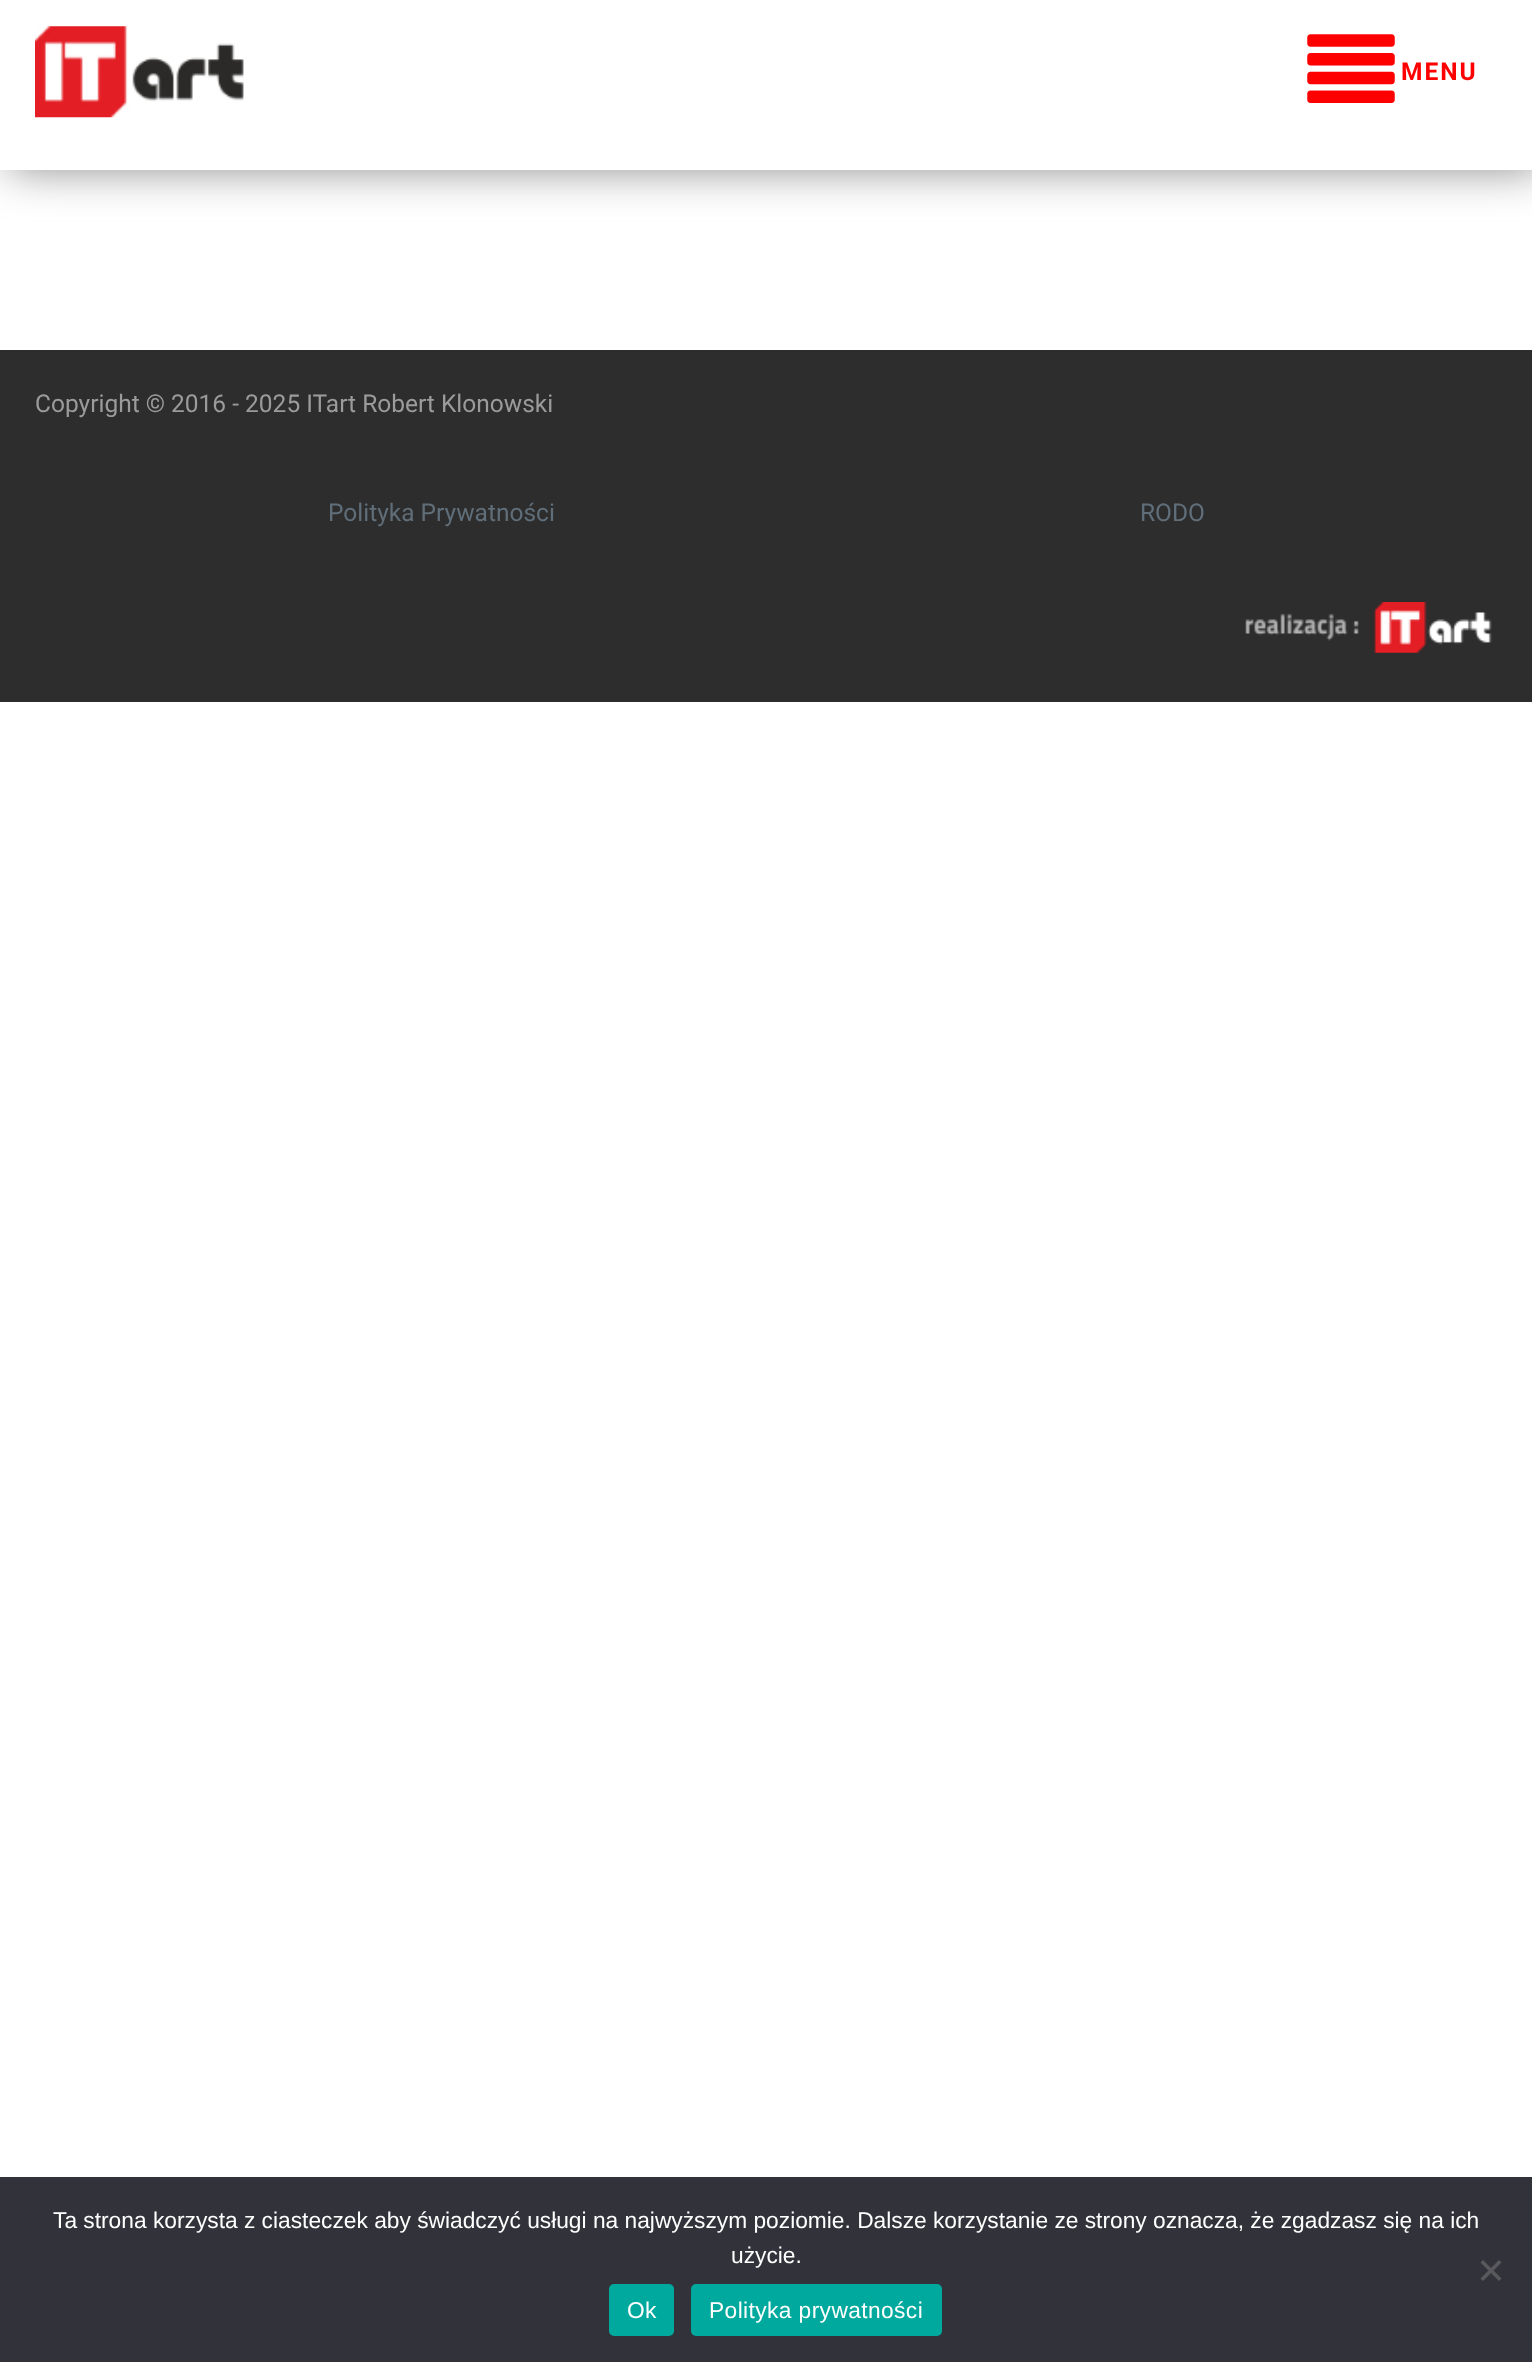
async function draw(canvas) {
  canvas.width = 1532;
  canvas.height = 2362;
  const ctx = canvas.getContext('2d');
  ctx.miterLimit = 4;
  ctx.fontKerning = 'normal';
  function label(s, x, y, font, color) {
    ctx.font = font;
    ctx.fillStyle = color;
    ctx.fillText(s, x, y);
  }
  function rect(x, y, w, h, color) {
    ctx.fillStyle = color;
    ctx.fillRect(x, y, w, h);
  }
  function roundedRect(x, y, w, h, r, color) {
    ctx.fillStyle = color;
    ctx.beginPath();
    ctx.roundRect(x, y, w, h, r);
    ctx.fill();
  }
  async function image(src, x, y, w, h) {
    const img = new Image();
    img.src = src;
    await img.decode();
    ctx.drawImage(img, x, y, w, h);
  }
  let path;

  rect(0, 0, 1532, 2362, '#fff');
  ctx.fillStyle = '#8e8e8e';
  ctx.filter = 'blur(22px)';
  ctx.beginPath();
  ctx.rect(9, 0, 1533, 170);
  ctx.fill();
  ctx.filter = 'none';
  rect(0, 0, 1532, 170, '#fff');
  await image('assets/img1.png', 35, 26, 209, 92);
  await image('assets/img2.png', 1307, 34, 88, 69);
  ctx.letterSpacing = '2px';
  label('MENU', 1401, 80, 'bold 24.5px Roboto', '#f00');
  rect(0, 350, 1532, 352, '#2d2d2d');
  ctx.letterSpacing = '0px';
  label('Copyright © 2016 - 2025 ITart Robert Klonowski', 35, 412, '24.5px Roboto', '#9b9b9b');
  label('Polityka Prywatności', 328, 521, '24.5px Roboto', '#606e79');
  label('RODO', 1140, 521, '24.5px Roboto', '#606e79');
  await image('assets/img3.png', 1245, 602, 247, 51);
  rect(0, 2177, 1532, 185, '#32323a');
  label('Ta strona korzysta z ciasteczek aby świadczyć usługi na najwyższym poziomie. Dalsze korzystanie ze strony oznacza, że zgadzasz się na ich', 53, 2228, '22.75px Liberation Sans', '#fff');
  label('użycie.', 731, 2263, '22.75px Liberation Sans', '#fff');
  ctx.fillStyle = '#59595d';
  path = new Path2D('M1499 2260L1501.5 2262.5L1483 2281L1480.5 2278.5Z');
  ctx.fill(path);
  path = new Path2D('M1480.5 2262.5L1483 2260L1501.5 2278.5L1499 2281Z');
  ctx.fill(path);
  roundedRect(609, 2284, 65, 52, 5, '#00a99d');
  ctx.letterSpacing = '0.4px';
  label('Ok', 627, 2318, '22.75px Liberation Sans', '#fff');
  roundedRect(691, 2284, 251, 52, 5, '#00a99d');
  label('Polityka prywatności', 709, 2318, '22.75px Liberation Sans', '#fff');
}

draw(document.querySelector('canvas'));
